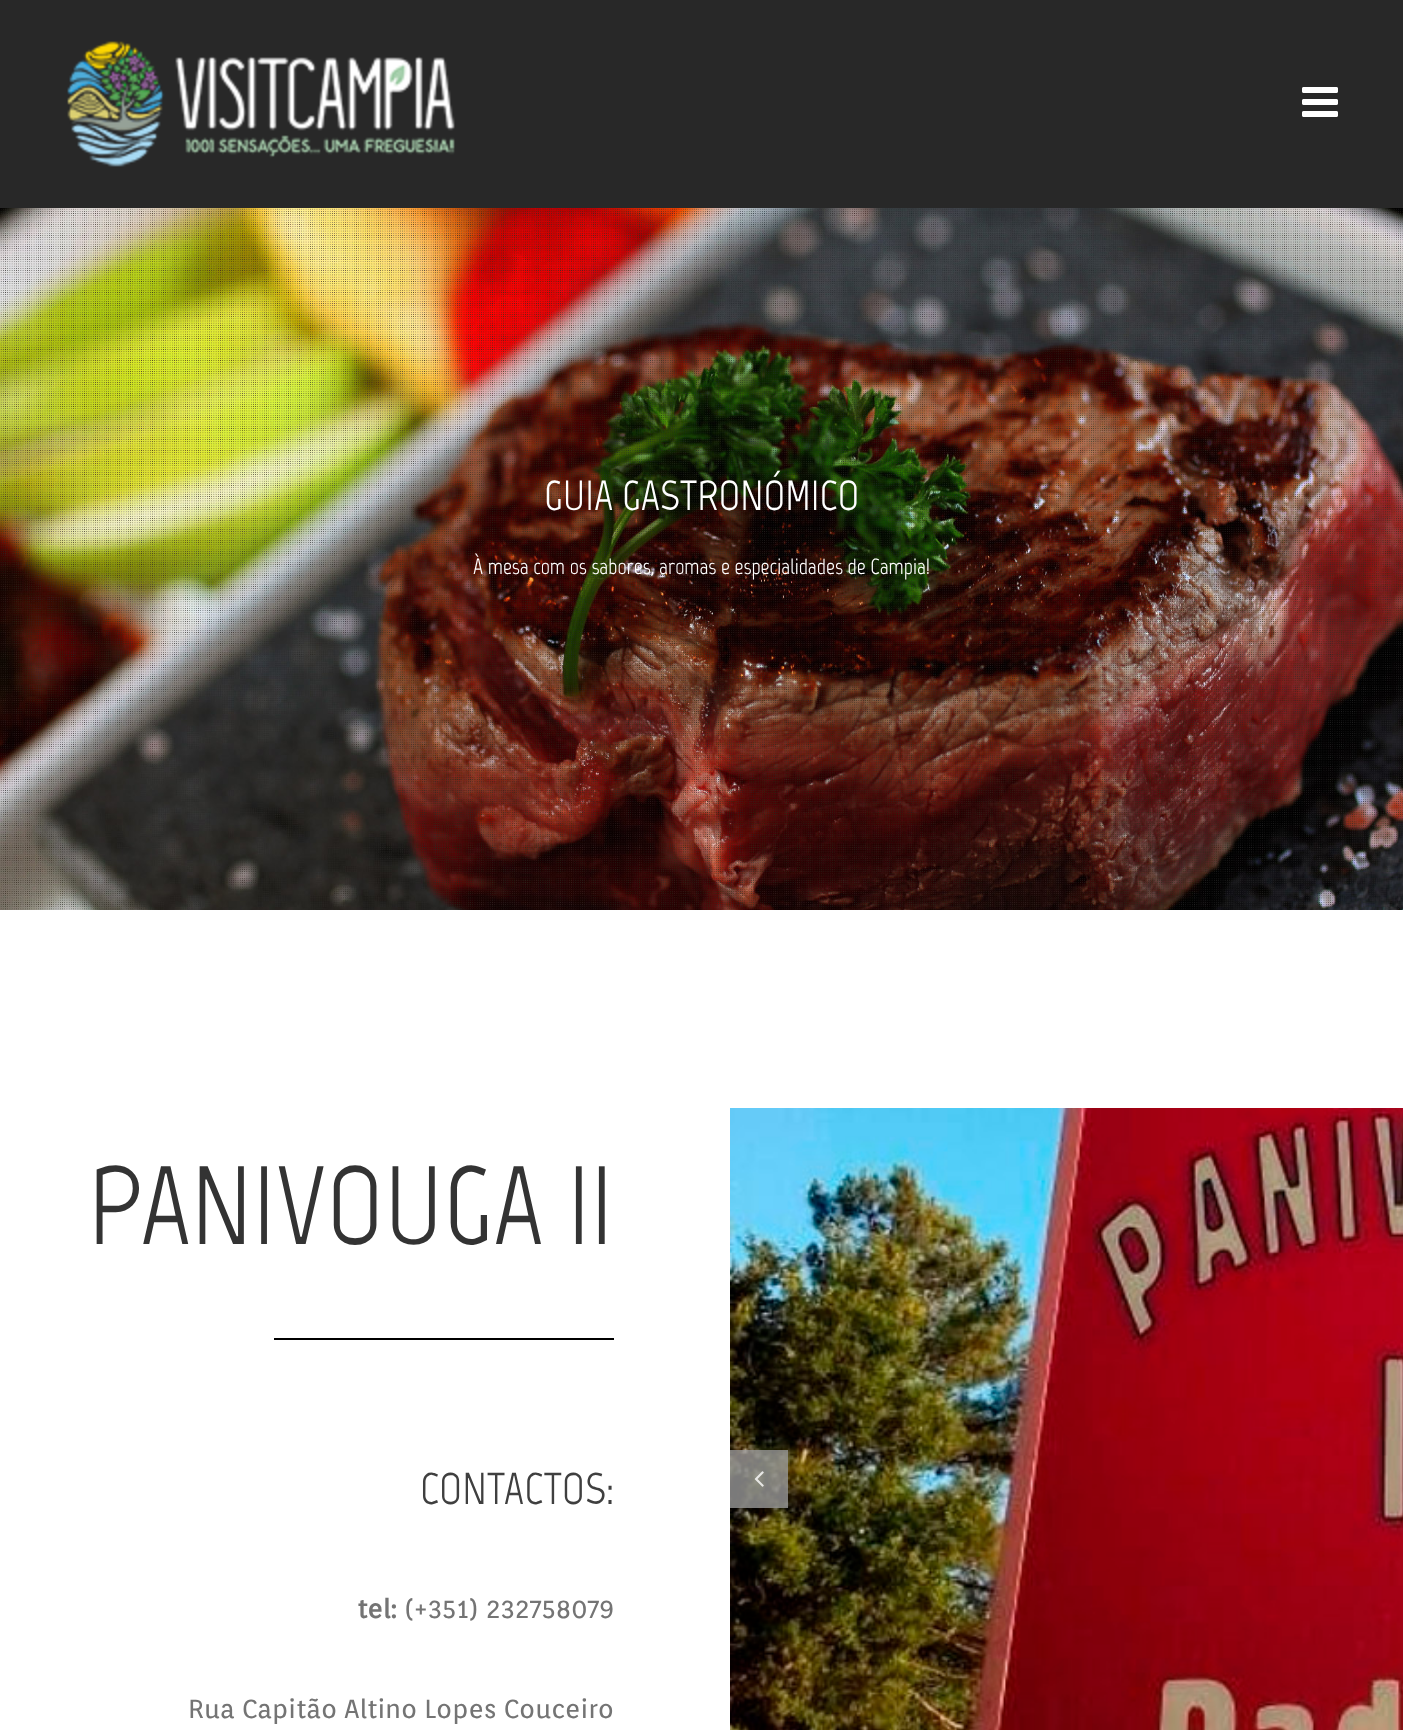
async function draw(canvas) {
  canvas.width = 1403;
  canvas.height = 1730;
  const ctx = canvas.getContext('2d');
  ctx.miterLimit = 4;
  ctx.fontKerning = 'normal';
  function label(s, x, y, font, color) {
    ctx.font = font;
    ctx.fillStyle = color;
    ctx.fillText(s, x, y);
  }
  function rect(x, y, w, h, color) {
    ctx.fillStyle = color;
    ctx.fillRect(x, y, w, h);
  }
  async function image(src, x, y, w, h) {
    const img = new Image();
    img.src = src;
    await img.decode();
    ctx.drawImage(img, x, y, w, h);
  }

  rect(0, 0, 1403, 1730, '#fff');
  rect(0, 0, 1403, 208, '#282828');
  await image('assets/img1.png', 67, 41, 388, 126);
  await image('assets/img2.png', 1302, 87, 36, 30);
  await image('assets/img3.png', 0, 208, 1403, 702);
  label('GUIA GASTRONÓMICO', 544, 510, '42px Marvel', '#fff');
  label('À mesa com os sabores, aromas e especialidades de Campia!', 473, 574, '22px Marvel', '#fff');
  label('PANIVOUGA II', 88, 1244, '111px Marvel', '#333');
  rect(274, 1338, 340, 2, '#000');
  label('CONTACTOS:', 420, 1504, '44.5px Marvel', '#3f3f3f');
  label('tel:', 357, 1618, 'bold 26px Orienta', '#747474');
  label('(+351) 232758079', 404, 1618, '26px Orienta', '#747474');
  label('Rua Capitão Altino Lopes Couceiro', 188, 1718, '26px Orienta', '#747474');
  await image('assets/img4.png', 730, 1108, 673, 622);
  rect(730, 1450, 58, 58, '#999999cc');
  await image('assets/img5.png', 754, 1471, 10, 16);
}

draw(document.querySelector('canvas'));
